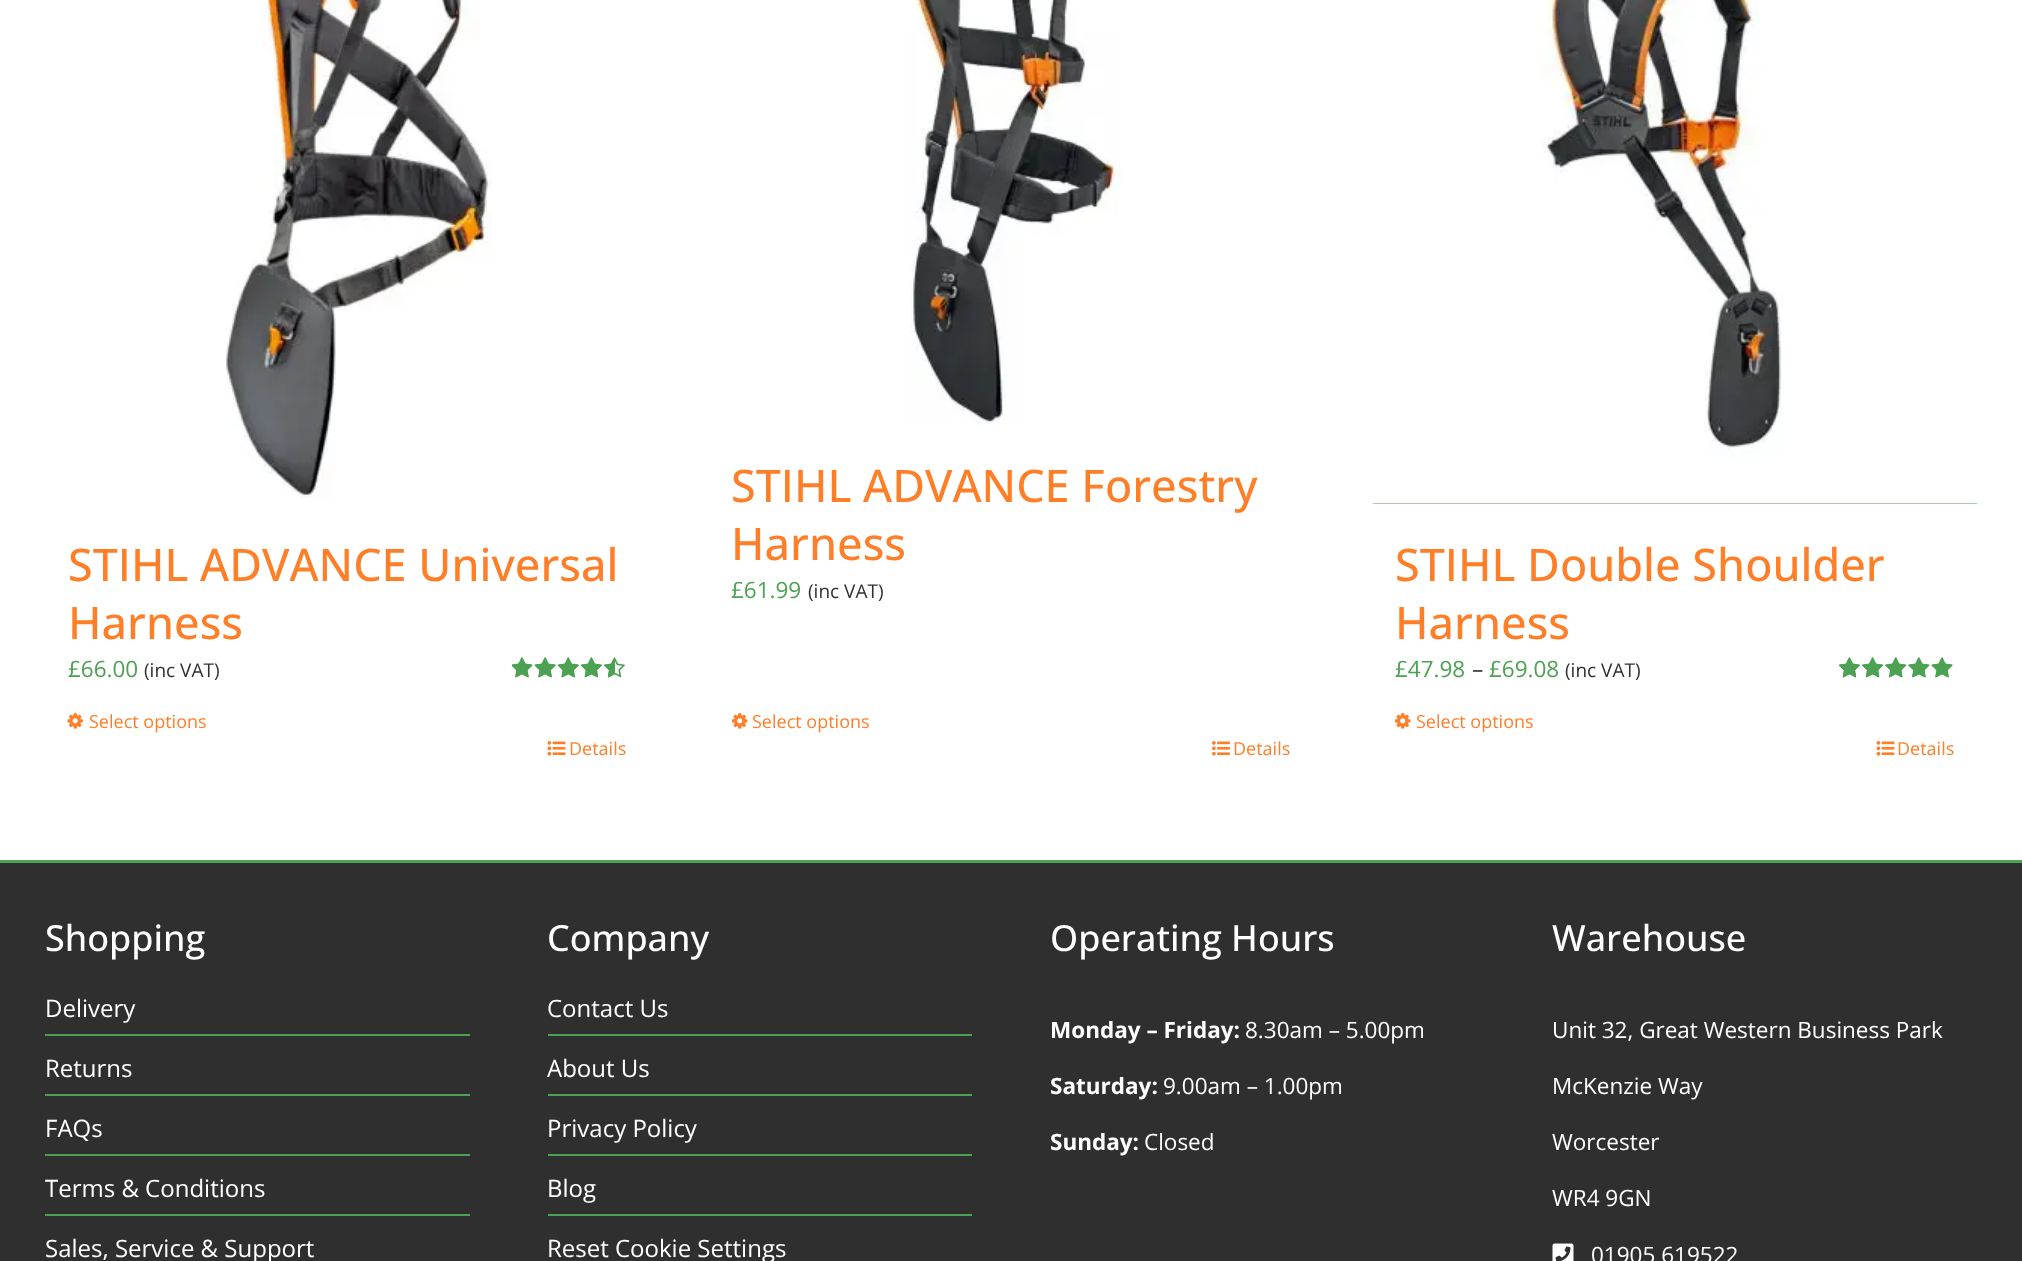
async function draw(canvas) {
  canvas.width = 2022;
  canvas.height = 1261;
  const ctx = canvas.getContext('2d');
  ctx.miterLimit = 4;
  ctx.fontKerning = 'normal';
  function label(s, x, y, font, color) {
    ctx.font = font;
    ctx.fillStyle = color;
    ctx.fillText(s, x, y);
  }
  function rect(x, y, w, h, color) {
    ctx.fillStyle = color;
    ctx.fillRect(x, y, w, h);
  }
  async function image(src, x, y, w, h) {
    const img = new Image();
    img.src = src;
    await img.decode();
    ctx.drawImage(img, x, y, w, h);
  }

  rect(0, 0, 2022, 1261, '#fff');
  await image('assets/img1.png', 226, 0, 266, 498);
  label('STIHL ADVANCE Universal', 68, 581, '500 45px Open Sans', '#ff7e28');
  label('Harness', 68, 639, '500 45px Open Sans', '#ff7e28');
  label('£66.00', 68, 677, '22.5px Open Sans', '#4ca152');
  label('(inc VAT)', 144, 677, '19px Open Sans', '#2f2f2f');
  await image('assets/img2.png', 512, 657, 113, 21);
  await image('assets/img3.png', 512, 657, 103, 21);
  await image('assets/img4.png', 67, 713, 16, 16);
  label('Select options', 89, 728, '18px Open Sans', '#ff7e28');
  await image('assets/img5.png', 547, 741, 19, 15);
  label('Details', 569, 755, '18px Open Sans', '#ff7e28');
  await image('assets/img6.png', 910, 0, 211, 425);
  label('STIHL ADVANCE Forestry', 731, 502, '500 45px Open Sans', '#ff7e28');
  label('Harness', 731, 560, '500 45px Open Sans', '#ff7e28');
  label('£61.99', 731, 598, '22.5px Open Sans', '#4ca152');
  label('(inc VAT)', 808, 598, '19px Open Sans', '#2f2f2f');
  await image('assets/img7.png', 732, 713, 16, 16);
  label('Select options', 752, 728, '18px Open Sans', '#ff7e28');
  await image('assets/img8.png', 1212, 741, 18, 15);
  label('Details', 1233, 755, '18px Open Sans', '#ff7e28');
  rect(1373, 503, 604, 1, '#4ca152');
  await image('assets/img9.png', 1373, 0, 604, 504);
  label('STIHL Double Shoulder', 1395, 581, '500 45px Open Sans', '#ff7e28');
  label('Harness', 1395, 639, '500 45px Open Sans', '#ff7e28');
  label('£47.98', 1395, 677, '22.5px Open Sans', '#4ca152');
  label('–', 1472, 677, '22.5px Open Sans', '#2f2f2f');
  label('£69.08', 1489, 677, '22.5px Open Sans', '#4ca152');
  label('(inc VAT)', 1565, 677, '19px Open Sans', '#2f2f2f');
  await image('assets/img10.png', 1839, 657, 114, 21);
  await image('assets/img11.png', 1839, 657, 114, 21);
  await image('assets/img7.png', 1395, 713, 16, 16);
  label('Select options', 1416, 728, '18px Open Sans', '#ff7e28');
  await image('assets/img5.png', 1876, 741, 19, 15);
  label('Details', 1897, 755, '18px Open Sans', '#ff7e28');
  rect(0, 863, 2022, 398, '#2f2f2f');
  rect(0, 860, 2022, 3, '#4ca152');
  label('Shopping', 45, 951, '500 36px Open Sans', '#fff');
  label('Delivery', 45, 1017, '24px Open Sans', '#fff');
  rect(45, 1034, 425, 2, '#4ca152');
  label('Returns', 45, 1077, '24px Open Sans', '#fff');
  rect(45, 1094, 425, 2, '#4ca152');
  label('FAQs', 45, 1137, '24px Open Sans', '#fff');
  rect(45, 1154, 425, 2, '#4ca152');
  label('Terms & Conditions', 45, 1197, '24px Open Sans', '#fff');
  rect(45, 1214, 425, 2, '#4ca152');
  label('Sales, Service & Support', 45, 1257, '24px Open Sans', '#fff');
  label('Company', 547, 951, '500 36px Open Sans', '#fff');
  label('Contact Us', 547, 1017, '24px Open Sans', '#fff');
  rect(548, 1034, 424, 2, '#4ca152');
  label('About Us', 547, 1077, '24px Open Sans', '#fff');
  rect(548, 1094, 424, 2, '#4ca152');
  label('Privacy Policy', 547, 1137, '24px Open Sans', '#fff');
  rect(548, 1154, 424, 2, '#4ca152');
  label('Blog', 547, 1197, '24px Open Sans', '#fff');
  rect(548, 1214, 424, 2, '#4ca152');
  label('Reset Cookie Settings', 547, 1257, '24px Open Sans', '#fff');
  label('Operating Hours', 1050, 951, '500 36px Open Sans', '#fff');
  label('Monday – Friday:', 1050, 1038, 'bold 22.5px Open Sans', '#fff');
  label('8.30am – 5.00pm', 1245, 1038, '22.5px Open Sans', '#fff');
  label('Saturday:', 1050, 1094, 'bold 22.5px Open Sans', '#fff');
  label('9.00am – 1.00pm', 1163, 1094, '22.5px Open Sans', '#fff');
  label('Sunday:', 1050, 1150, 'bold 22.5px Open Sans', '#fff');
  label('Closed', 1144, 1150, '22.5px Open Sans', '#fff');
  label('Warehouse', 1552, 951, '500 36px Open Sans', '#fff');
  label('Unit 32, Great Western Business Park', 1552, 1038, '22.5px Open Sans', '#fff');
  label('McKenzie Way', 1552, 1094, '22.5px Open Sans', '#fff');
  label('Worcester', 1552, 1150, '22.5px Open Sans', '#fff');
  label('WR4 9GN', 1552, 1206, '22.5px Open Sans', '#fff');
  await image('assets/img12.png', 1552, 1243, 22, 18);
  label('01905 619522', 1591, 1263, '22.5px Open Sans', '#fff');
}

draw(document.querySelector('canvas'));
